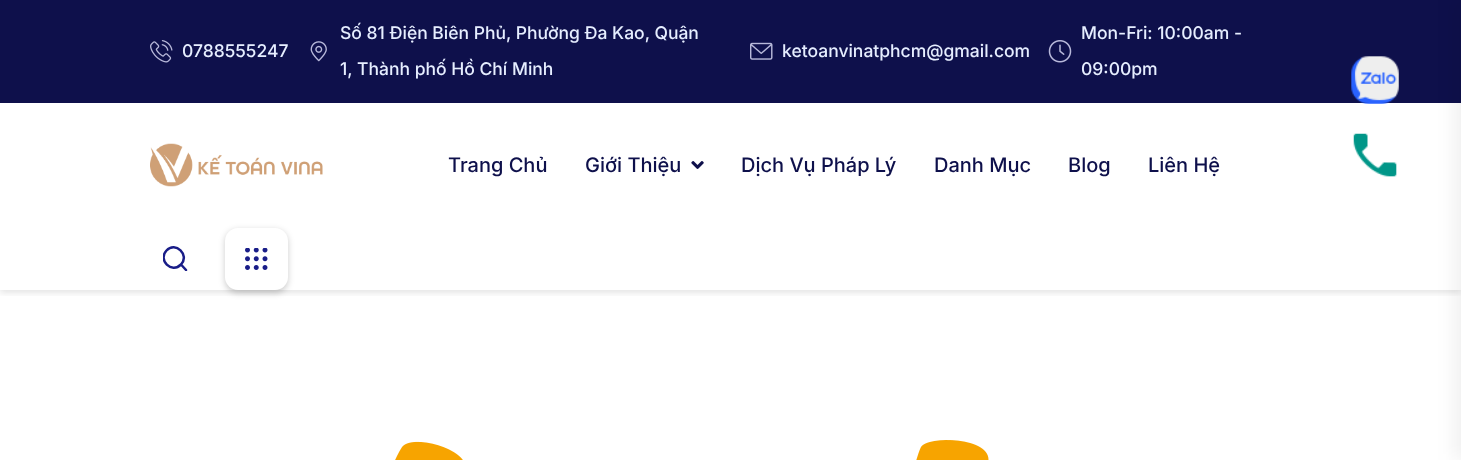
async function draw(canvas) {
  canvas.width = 1461;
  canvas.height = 460;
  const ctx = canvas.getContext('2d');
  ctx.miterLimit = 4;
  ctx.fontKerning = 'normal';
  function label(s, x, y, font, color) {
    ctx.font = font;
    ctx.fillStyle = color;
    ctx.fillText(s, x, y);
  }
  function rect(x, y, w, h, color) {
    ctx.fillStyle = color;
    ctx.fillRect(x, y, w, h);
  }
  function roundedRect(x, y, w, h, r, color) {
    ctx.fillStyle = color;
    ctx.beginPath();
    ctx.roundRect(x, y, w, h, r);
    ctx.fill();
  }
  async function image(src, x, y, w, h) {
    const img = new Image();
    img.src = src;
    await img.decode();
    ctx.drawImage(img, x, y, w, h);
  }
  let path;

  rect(0, 0, 1461, 460, '#fff');
  rect(0, 0, 1461, 103, '#0e104b');
  await image('assets/img1.png', 150, 40, 23, 23);
  label('0788555247', 182, 57, '500 17.5px Inter', '#e6eeff');
  label('Số 81 Điện Biên Phủ, Phường Đa Kao, Quận', 340, 39, '500 17.5px Inter', '#e6eeff');
  await image('assets/img2.png', 310, 41, 17, 21);
  label('1, Thành phố Hồ Chí Minh', 340, 75, '500 17.5px Inter', '#e6eeff');
  await image('assets/img3.png', 750, 42, 23, 18);
  label('ketoanvinatphcm@gmail.com', 782, 57, '500 17.5px Inter', '#e6eeff');
  label('Mon-Fri: 10:00am -', 1081, 39, '500 17.5px Inter', '#e6eeff');
  await image('assets/img4.png', 1048, 40, 24, 23);
  label('09:00pm', 1081, 75, '500 17.5px Inter', '#e6eeff');
  ctx.save();
  ctx.beginPath();
  ctx.rect(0, 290, 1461, 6);
  ctx.clip();
  ctx.fillStyle = '#0000001a';
  ctx.filter = 'blur(3px)';
  ctx.beginPath();
  ctx.rect(0, 105, 1461, 188);
  ctx.fill();
  ctx.filter = 'none';
  ctx.restore();
  await image('assets/img5.png', 150, 143, 173, 44);
  label('Trang Chủ', 448, 172, '500 20px Inter', '#0e104b');
  label('Giới Thiệu', 585, 172, '500 20px Inter', '#0e104b');
  await image('assets/img6.png', 691, 161, 13, 8);
  label('Dịch Vụ Pháp Lý', 741, 172, '500 20px Inter', '#0e104b');
  label('Danh Mục', 934, 172, '500 20px Inter', '#0e104b');
  label('Blog', 1068, 172, '500 20px Inter', '#0e104b');
  label('Liên Hệ', 1148, 172, '500 20px Inter', '#0e104b');
  ctx.save();
  ctx.beginPath();
  ctx.rect(163, 246, 25, 25);
  ctx.clip();
  path = new Path2D('M186 270L181 264.5M181 264.5C190 255 175.5 241 166.5 250.5C157.5 260 171.5 274 181 264.5Z');
  ctx.strokeStyle = '#191d88';
  ctx.lineWidth = 2.5;
  ctx.lineCap = 'round';
  ctx.lineJoin = 'round';
  ctx.stroke(path);
  ctx.restore();
  ctx.fillStyle = '#00000033';
  ctx.filter = 'blur(3px)';
  ctx.beginPath();
  ctx.roundRect(225, 230, 63, 63, 13);
  ctx.fill();
  ctx.filter = 'none';
  roundedRect(225, 228, 63, 62, 13, '#fff');
  await image('assets/img7.png', 245, 248, 23, 22);
  ctx.fillStyle = '#0000000f';
  ctx.filter = 'blur(9px)';
  ctx.beginPath();
  ctx.rect(1454, 0, 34, 460);
  ctx.fill();
  ctx.filter = 'none';
  await image('assets/img8.png', 1351, 56, 48, 48);
  await image('assets/img9.png', 1353, 133, 44, 44);
  await image('assets/img10.png', 395, 440, 594, 20);
}

draw(document.querySelector('canvas'));
